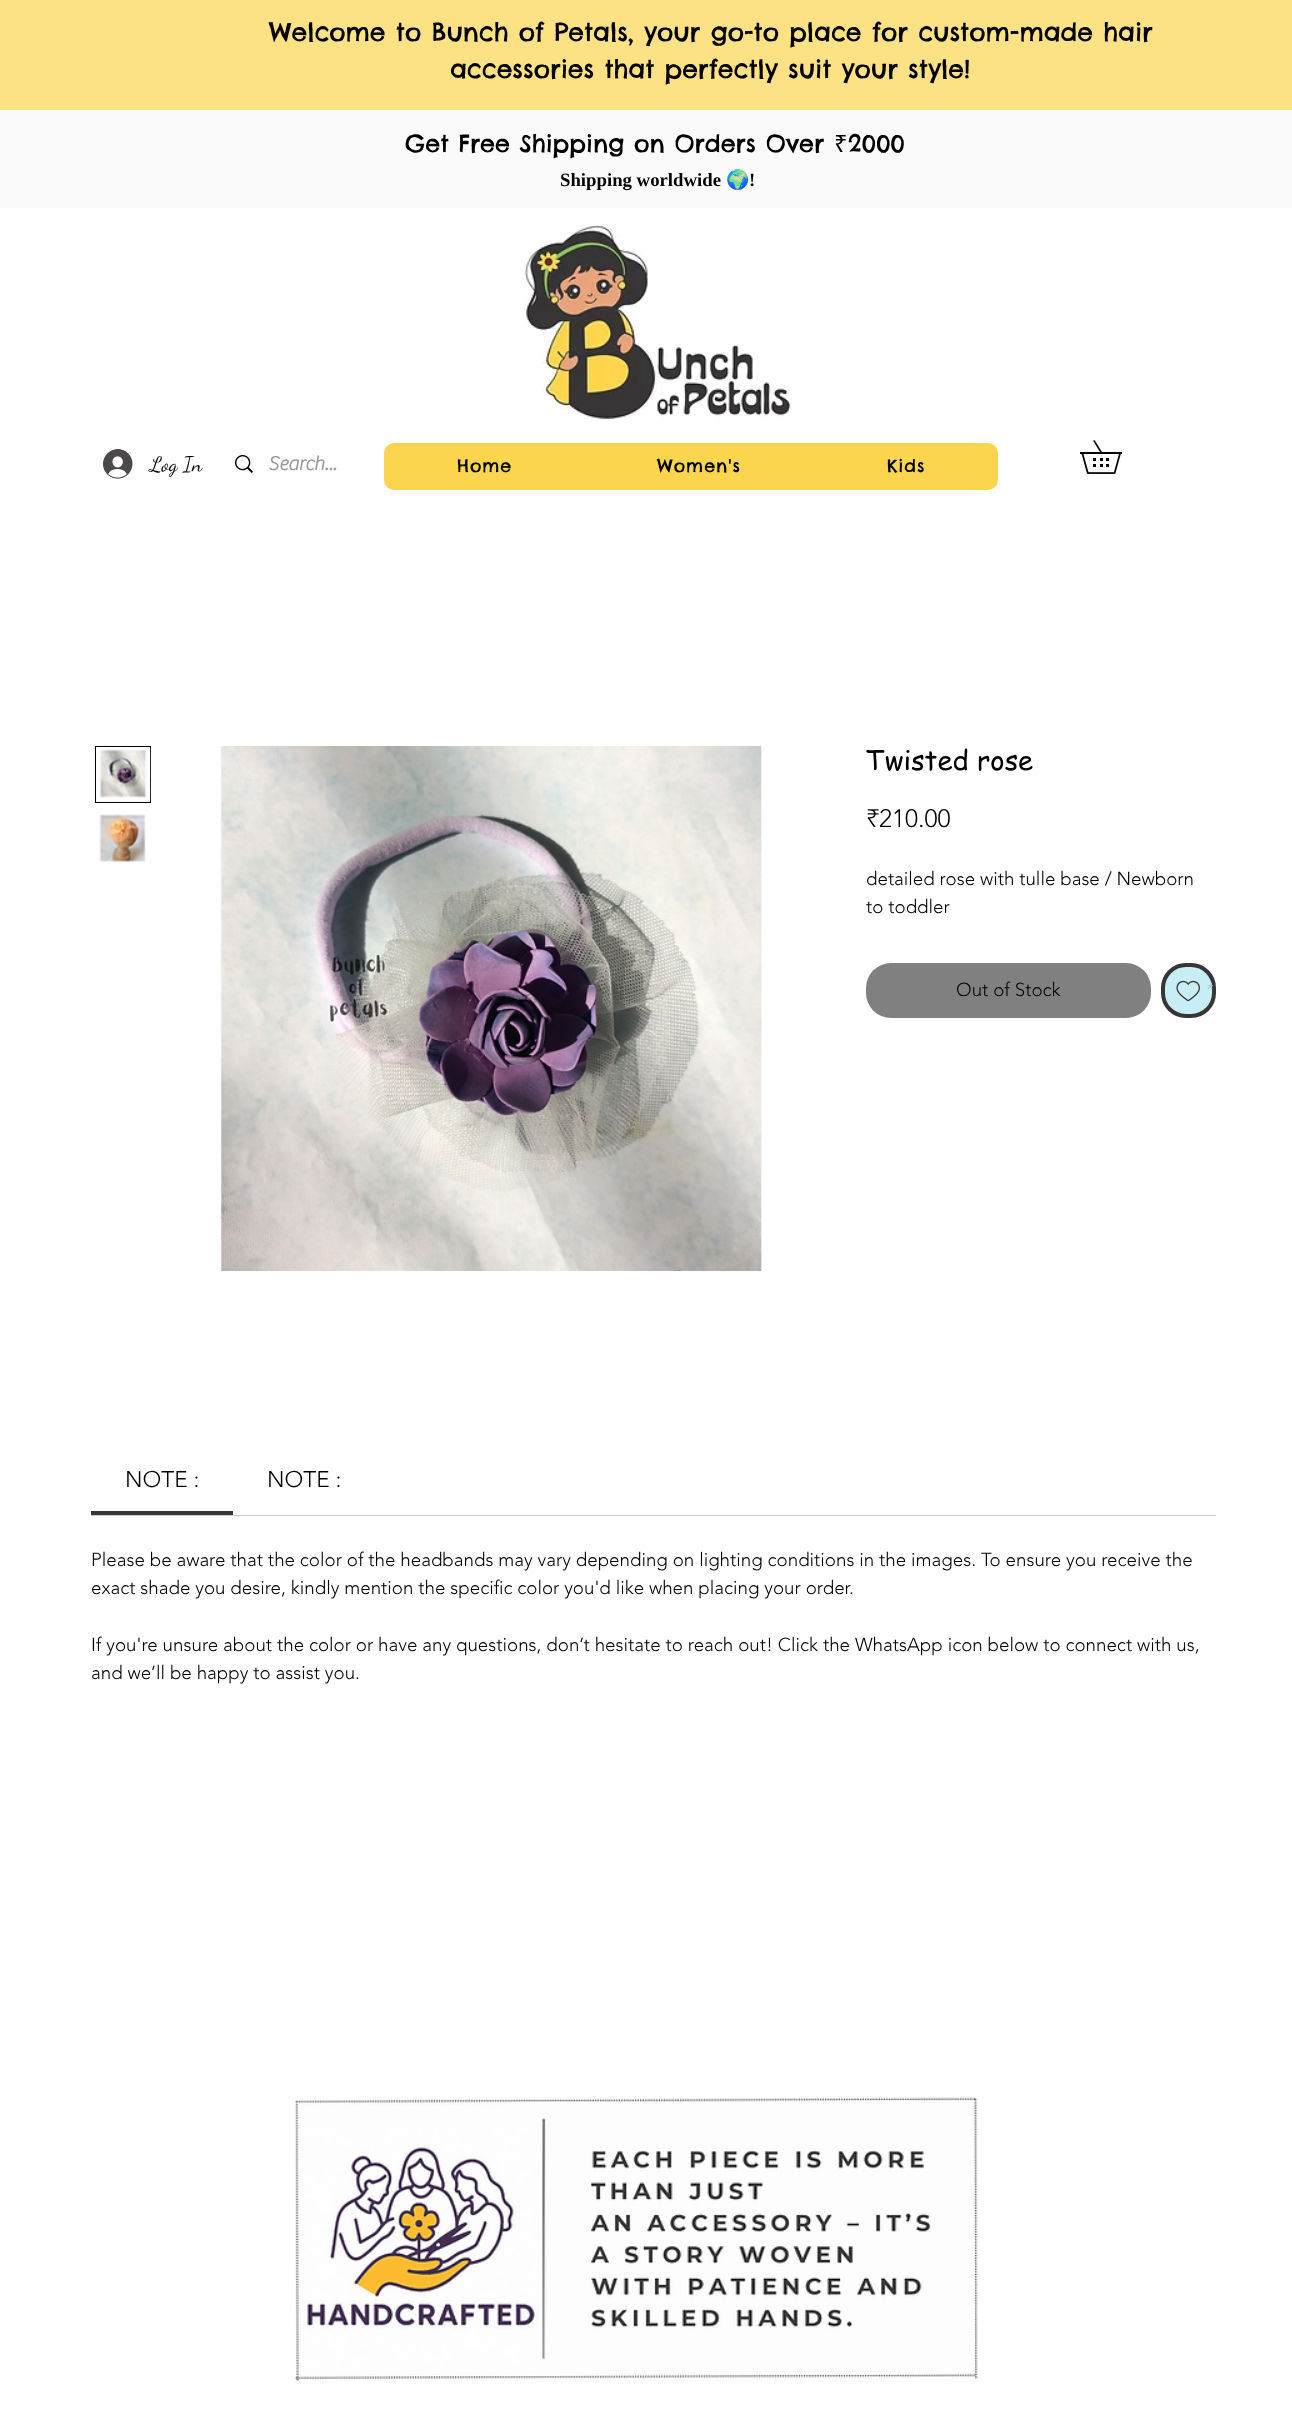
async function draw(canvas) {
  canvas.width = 1292;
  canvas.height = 2411;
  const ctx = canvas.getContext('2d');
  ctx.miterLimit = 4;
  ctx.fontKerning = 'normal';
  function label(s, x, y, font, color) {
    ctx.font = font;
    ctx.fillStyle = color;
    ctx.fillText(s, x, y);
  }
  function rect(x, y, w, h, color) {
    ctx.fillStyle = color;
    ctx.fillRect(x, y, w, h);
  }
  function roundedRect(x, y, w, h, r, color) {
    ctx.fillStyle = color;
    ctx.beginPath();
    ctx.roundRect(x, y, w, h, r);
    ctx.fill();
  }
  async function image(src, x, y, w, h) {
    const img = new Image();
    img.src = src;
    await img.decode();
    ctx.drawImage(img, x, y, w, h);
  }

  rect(0, 0, 1292, 2411, '#fff');
  rect(0, 0, 1292, 110, '#fce284');
  label('Welcome to Bunch of Petals, your go-to place for custom-made hair', 269, 41, '25px Chelsea Market', '#000');
  label('accessories that perfectly suit your style!', 450, 78, '25px Chelsea Market', '#000');
  rect(0, 111, 1292, 97, '#fafafa');
  label('Get Free Shipping on Orders Over', 405, 152, '23.75px Chelsea Market', '#000');
  label('₹', 834, 152, '23.75px Noto Sans', '#000');
  label('2000', 848, 152, '23.75px Chelsea Market', '#000');
  label('Shipping worldwide', 560, 186, 'bold 18.75px Liberation Serif', '#000');
  label('🌍', 726, 186, 'bold 18.75px Noto Color Emoji', '#000');
  label('!', 749, 186, 'bold 18.75px Liberation Serif', '#000');
  await image('assets/img1.png', 523, 224, 269, 195);
  await image('assets/img2.png', 103, 449, 30, 30);
  label('Log In', 150, 471, '21px Dancing Script', '#000');
  await image('assets/img3.png', 235, 455, 18, 18);
  label('Search...', 268, 470, 'bold 20px "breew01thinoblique"', '#999');
  roundedRect(384, 443, 614, 47, 10, '#fad54d');
  ctx.letterSpacing = '1px';
  label('Home', 457, 472, '17.5px Chelsea Market', '#000');
  label('Women\'s', 657, 472, '17.5px Chelsea Market', '#000');
  label('Kids', 887, 472, '17.5px Chelsea Market', '#000');
  await image('assets/img4.png', 1080, 440, 42, 34);
  ctx.strokeStyle = '#000';
  ctx.strokeRect(95.5, 746.5, 55, 56);
  await image('assets/img5.png', 99, 747, 52, 55);
  await image('assets/img6.png', 99, 814, 47, 48);
  await image('assets/img7.png', 220, 746, 542, 525);
  ctx.letterSpacing = '0px';
  label('Twisted rose', 866, 770, '27.5px "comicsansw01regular"', '#000');
  label('₹210.00', 866, 827, '300 25px "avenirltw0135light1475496"', '#000');
  label('detailed rose with tulle base / Newborn', 866, 885, '300 18.75px "avenirltw0135light1475496"', '#000');
  label('to toddler', 866, 913, '300 18.75px "avenirltw0135light1475496"', '#000');
  roundedRect(866, 963, 285, 55, 25, '#808080');
  label('Out of Stock', 956, 996, '300 18.75px "avenirltw0135light1475496"', '#000');
  ctx.fillStyle = '#c8eef5';
  ctx.beginPath();
  ctx.roundRect(1163, 965, 51, 51, 23);
  ctx.fill();
  ctx.strokeStyle = '#373536';
  ctx.lineWidth = 4;
  ctx.stroke();
  await image('assets/img8.png', 1176, 980, 24, 22);
  ctx.save();
  ctx.beginPath();
  ctx.rect(1165, 970, 48, 40);
  ctx.clip();
  label('*', 1204, 996, 'italic 300 18.75px "avenirltw0135light1475496"', '#abc9ce');
  ctx.restore();
  rect(91, 1515, 1125, 1, '#ccc');
  rect(91, 1511, 142, 4, '#373536');
  label('NOTE :', 125, 1487, '300 22.5px "avenirltw0135light1475496"', '#000');
  label('NOTE :', 267, 1487, '300 22.5px "avenirltw0135light1475496"', '#000');
  label('Please be aware that the color of the headbands may vary depending on lighting conditions in the images. To ensure you receive the', 91, 1566, '300 18.75px "avenirltw0135light1475496"', '#000');
  label('exact shade you desire, kindly mention the specific color you\'d like when placing your order.', 91, 1594, '300 18.75px "avenirltw0135light1475496"', '#000');
  label('If you\'re unsure about the color or have any questions, don’t hesitate to reach out! Click the WhatsApp icon below to connect with us,', 91, 1651, '300 18.75px "avenirltw0135light1475496"', '#000');
  label('and we’ll be happy to assist you.', 91, 1679, '300 18.75px "avenirltw0135light1475496"', '#000');
  await image('assets/img9.png', 295, 2097, 683, 285);
}

draw(document.querySelector('canvas'));
